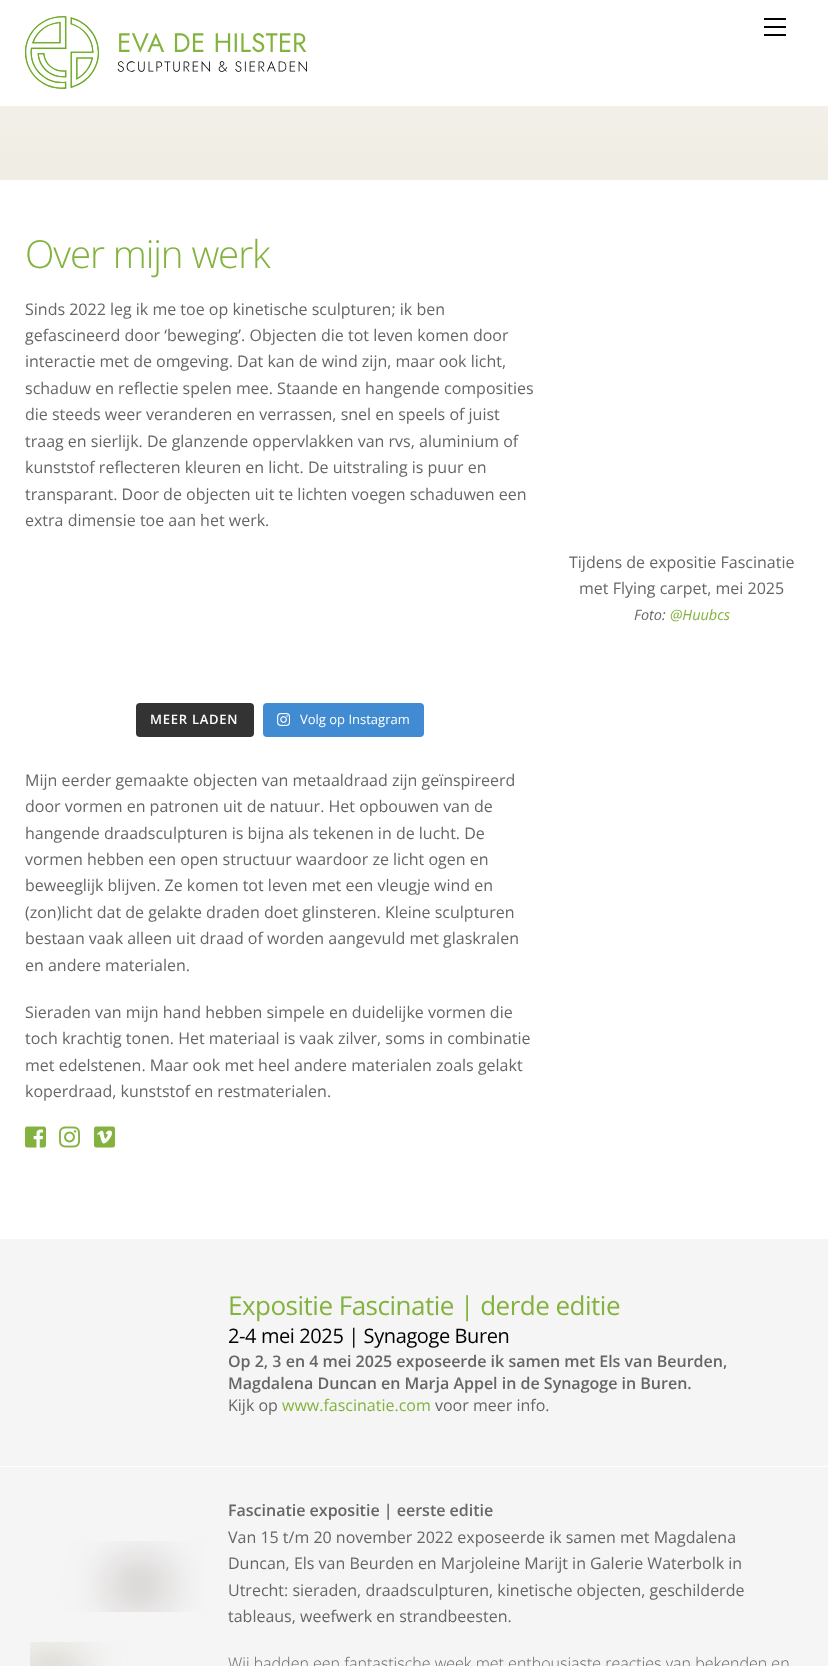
async function draw(canvas) {
  canvas.width = 828;
  canvas.height = 1666;
  const ctx = canvas.getContext('2d');
  ctx.miterLimit = 4;
  ctx.fontKerning = 'normal';
  function label(s, x, y, font, color) {
    ctx.font = font;
    ctx.fillStyle = color;
    ctx.fillText(s, x, y);
  }
  function rect(x, y, w, h, color) {
    ctx.fillStyle = color;
    ctx.fillRect(x, y, w, h);
  }
  function roundedRect(x, y, w, h, r, color) {
    ctx.fillStyle = color;
    ctx.beginPath();
    ctx.roundRect(x, y, w, h, r);
    ctx.fill();
  }
  async function image(src, x, y, w, h) {
    const img = new Image();
    img.src = src;
    await img.decode();
    ctx.drawImage(img, x, y, w, h);
  }
  let gradient;

  rect(0, 0, 828, 1666, '#fff');
  await image('assets/img1.png', 25, 15, 282, 75);
  rect(764, 34, 22, 2, '#000');
  rect(764, 18, 22, 2, '#000');
  rect(764, 26, 22, 2, '#000');
  gradient = ctx.createLinearGradient(414, -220, 414, 180);
  gradient.addColorStop(0, '#fff');
  gradient.addColorStop(0.98, '#f0ede4');
  ctx.fillStyle = gradient;
  ctx.fillRect(0, 106, 828, 74);
  ctx.letterSpacing = '-1.1px';
  label('Over mijn werk', 25, 268, '300 38.5px Open Sans', '#83b23e');
  ctx.letterSpacing = '0px';
  label('Sinds 2022 leg ik me toe op kinetische sculpturen; ik ben', 25, 315, '16px Open Sans', '#666');
  label('gefascineerd door ‘beweging’. Objecten die tot leven komen door', 25, 341, '16px Open Sans', '#666');
  label('interactie met de omgeving. Dat kan de wind zijn, maar ook licht,', 25, 367, '16px Open Sans', '#666');
  label('schaduw en reflectie spelen mee. Staande en hangende composities', 25, 394, '16px Open Sans', '#666');
  label('die steeds weer veranderen en verrassen, snel en speels of juist', 25, 420, '16px Open Sans', '#666');
  label('traag en sierlijk. De glanzende oppervlakken van rvs, aluminium of', 25, 447, '16px Open Sans', '#666');
  label('kunststof reflecteren kleuren en licht. De uitstraling is puur en', 25, 473, '16px Open Sans', '#666');
  label('transparant. Door de objecten uit te lichten voegen schaduwen een', 25, 500, '16px Open Sans', '#666');
  label('extra dimensie toe aan het werk.', 25, 526, '16px Open Sans', '#666');
  roundedRect(136, 703, 118, 34, 4, '#333');
  ctx.letterSpacing = '0.75px';
  label('MEER LADEN', 150, 724, '600 13px Open Sans', '#fff');
  roundedRect(263, 703, 161, 34, 4, '#408bd1');
  await image('assets/img2.png', 277, 713, 13, 13);
  ctx.letterSpacing = '0px';
  label('Volg op Instagram', 300, 724, '13px Open Sans', '#fff');
  label('Mijn eerder gemaakte objecten van metaaldraad zijn geïnspireerd', 25, 786, '16px Open Sans', '#666');
  label('door vormen en patronen uit de natuur. Het opbouwen van de', 25, 812, '16px Open Sans', '#666');
  label('hangende draadsculpturen is bijna als tekenen in de lucht. De', 25, 839, '16px Open Sans', '#666');
  label('vormen hebben een open structuur waardoor ze licht ogen en', 25, 865, '16px Open Sans', '#666');
  label('beweeglijk blijven. Ze komen tot leven met een vleugje wind en', 25, 891, '16px Open Sans', '#666');
  label('(zon)licht dat de gelakte draden doet glinsteren. Kleine sculpturen', 25, 918, '16px Open Sans', '#666');
  label('bestaan vaak alleen uit draad of worden aangevuld met glaskralen', 25, 944, '16px Open Sans', '#666');
  label('en andere materialen.', 25, 971, '16px Open Sans', '#666');
  label('Sieraden van mijn hand hebben simpele en duidelijke vormen die', 25, 1018, '16px Open Sans', '#666');
  label('toch krachtig tonen. Het materiaal is vaak zilver, soms in combinatie', 25, 1044, '16px Open Sans', '#666');
  label('met edelstenen. Maar ook met heel andere materialen zoals gelakt', 25, 1071, '16px Open Sans', '#666');
  label('koperdraad, kunststof en restmaterialen.', 25, 1097, '16px Open Sans', '#666');
  await image('assets/img3.png', 25, 1126, 21, 22);
  await image('assets/img4.png', 59, 1126, 21, 22);
  await image('assets/img5.png', 94, 1126, 21, 22);
  label('Tijdens de expositie Fascinatie', 569, 568, '16px Open Sans', '#666');
  label('met Flying carpet, mei 2025', 579, 594, '16px Open Sans', '#666');
  label('Foto:', 634, 620, 'italic 14.5px Open Sans', '#666');
  label('@Huubcs', 670, 620, 'italic 14.5px Open Sans', '#83b23e');
  rect(0, 1239, 828, 227, '#f5f5f5');
  ctx.letterSpacing = '-0.5px';
  label('Expositie Fascinatie | derde editie', 228, 1315, '26px Open Sans', '#83b23e');
  ctx.letterSpacing = '-0.4px';
  label('2-4 mei 2025 | Synagoge Buren', 228, 1343, '20px Open Sans', '#000');
  ctx.letterSpacing = '0px';
  label('Op 2, 3 en 4 mei 2025 exposeerde ik samen met Els van Beurden,', 228, 1367, '600 16px Open Sans', '#666');
  label('Magdalena Duncan en Marja Appel in de Synagoge in Buren.', 228, 1389, '600 16px Open Sans', '#666');
  label('Kijk op', 228, 1411, '16px Open Sans', '#666');
  label('www.fascinatie.com', 282, 1411, '16px Open Sans', '#83b23e');
  label('voor meer info.', 435, 1411, '16px Open Sans', '#666');
  rect(0, 1467, 828, 199, '#f5f5f5');
  ctx.save();
  ctx.beginPath();
  ctx.rect(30, 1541, 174, 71);
  ctx.clip();
  ctx.fillStyle = '#70625d';
  ctx.filter = 'blur(25px)';
  ctx.beginPath();
  ctx.rect(117, 1576, 44, 18);
  ctx.fill();
  ctx.filter = 'none';
  ctx.restore();
  ctx.save();
  ctx.beginPath();
  ctx.rect(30, 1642, 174, 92);
  ctx.clip();
  ctx.fillStyle = '#979070';
  ctx.filter = 'blur(25px)';
  ctx.beginPath();
  ctx.rect(30, 1665, 44, 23);
  ctx.fill();
  ctx.filter = 'none';
  ctx.restore();
  label('Fascinatie expositie | eerste editie', 228, 1516, '600 16px Open Sans', '#666');
  label('Van 15 t/m 20 november 2022 exposeerde ik samen met Magdalena', 228, 1543, '16px Open Sans', '#666');
  label('Duncan, Els van Beurden en Marjoleine Marijt in Galerie Waterbolk in', 228, 1569, '16px Open Sans', '#666');
  label('Utrecht: sieraden, draadsculpturen, kinetische objecten, geschilderde', 228, 1596, '16px Open Sans', '#666');
  label('tableaus, weefwerk en strandbeesten.', 228, 1622, '16px Open Sans', '#666');
  label('Wij hadden een fantastische week met enthousiaste reacties van bekenden en', 228, 1669, '300 16px Open Sans', '#666');
}

draw(document.querySelector('canvas'));
